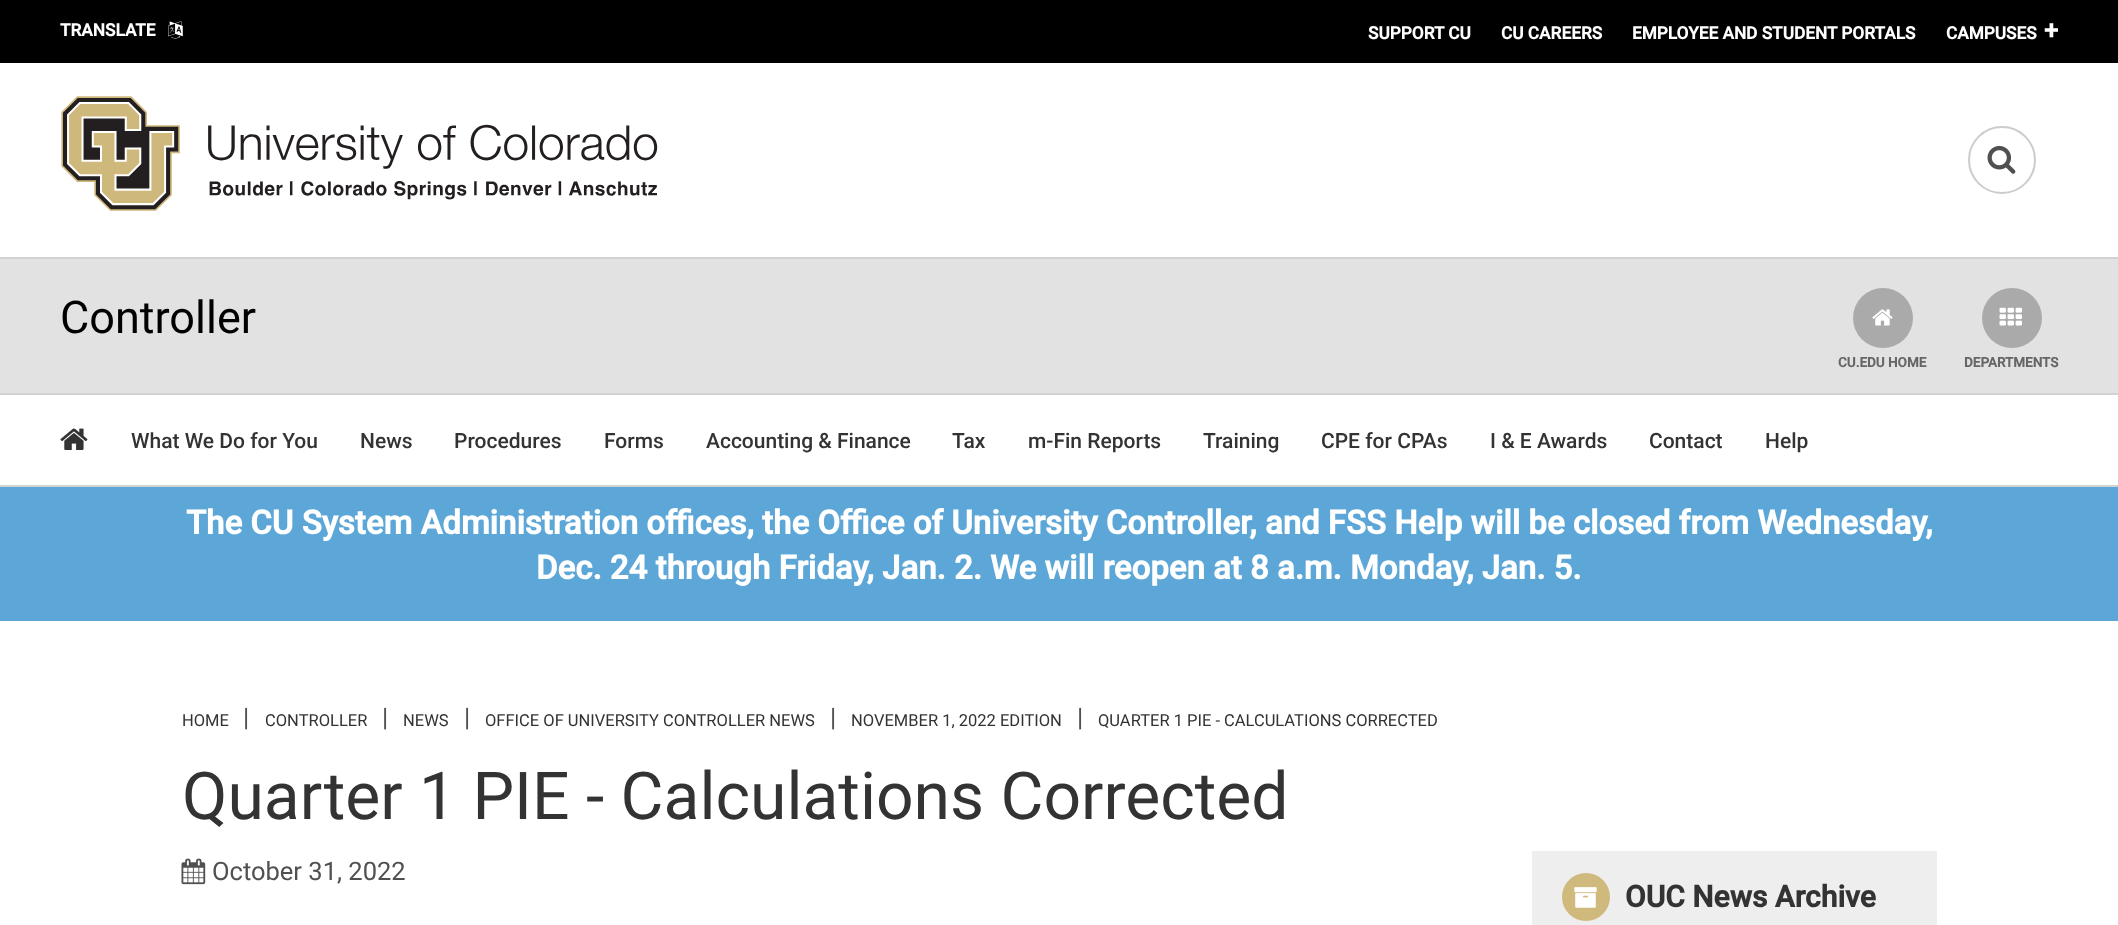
async function draw(canvas) {
  canvas.width = 2118;
  canvas.height = 925;
  const ctx = canvas.getContext('2d');
  ctx.miterLimit = 4;
  ctx.fontKerning = 'normal';
  function label(s, x, y, font, color) {
    ctx.font = font;
    ctx.fillStyle = color;
    ctx.fillText(s, x, y);
  }
  function rect(x, y, w, h, color) {
    ctx.fillStyle = color;
    ctx.fillRect(x, y, w, h);
  }
  async function image(src, x, y, w, h) {
    const img = new Image();
    img.src = src;
    await img.decode();
    ctx.drawImage(img, x, y, w, h);
  }

  rect(0, 0, 2118, 925, '#fff');
  rect(0, 0, 2118, 63, '#000');
  label('TRANSLATE', 60, 36, 'bold 17.25px Roboto', '#fff');
  await image('assets/img1.png', 168, 21, 15, 18);
  label('SUPPORT CU', 1368, 39, 'bold 17.25px Roboto', '#fff');
  label('CU CAREERS', 1501, 39, 'bold 17.25px Roboto', '#fff');
  label('EMPLOYEE AND STUDENT PORTALS', 1632, 39, 'bold 17.25px Roboto', '#fff');
  label('CAMPUSES', 1946, 39, 'bold 17.25px Roboto', '#fff');
  label('+', 2044, 39, 'bold 25.5px Roboto', '#fff');
  await image('assets/img2.png', 61, 96, 597, 115);
  ctx.beginPath();
  ctx.arc(2002, 160, 33, 0, 2 * Math.PI);
  ctx.strokeStyle = '#ccc';
  ctx.lineWidth = 2;
  ctx.stroke();
  await image('assets/img3.png', 1987, 145, 29, 29);
  rect(0, 259, 2118, 134, '#e2e2e2');
  rect(0, 257, 2118, 2, '#d2d2d2');
  label('Controller', 60, 333, '45px Roboto', '#000');
  ctx.fillStyle = '#aaa';
  ctx.beginPath();
  ctx.arc(1883, 318, 30, 0, 2 * Math.PI);
  ctx.fill();
  await image('assets/img4.png', 1872, 309, 21, 17);
  label('CU.EDU HOME', 1838, 367, 'bold 13.5px Roboto', '#666');
  ctx.fillStyle = '#aaa';
  ctx.beginPath();
  ctx.arc(2012, 318, 30, 0, 2 * Math.PI);
  ctx.fill();
  await image('assets/img5.png', 1999, 307, 23, 19);
  label('DEPARTMENTS', 1964, 367, 'bold 13.5px Roboto', '#666');
  rect(0, 393, 2118, 2, '#d2d3d4');
  rect(0, 485, 2118, 2, '#d2d3d4');
  await image('assets/img6.png', 60, 428, 28, 22);
  label('What We Do for You', 131, 448, '500 21px Roboto', '#333');
  label('News', 360, 448, '500 21px Roboto', '#333');
  label('Procedures', 454, 448, '500 21px Roboto', '#333');
  label('Forms', 604, 448, '500 21px Roboto', '#333');
  label('Accounting & Finance', 706, 448, '500 21px Roboto', '#333');
  label('Tax', 952, 448, '500 21px Roboto', '#333');
  label('m-Fin Reports', 1028, 448, '500 21px Roboto', '#333');
  label('Training', 1203, 448, '500 21px Roboto', '#333');
  label('CPE for CPAs', 1321, 448, '500 21px Roboto', '#333');
  label('I & E Awards', 1490, 448, '500 21px Roboto', '#333');
  label('Contact', 1649, 448, '500 21px Roboto', '#333');
  label('Help', 1765, 448, '500 21px Roboto', '#333');
  rect(0, 487, 2118, 134, '#5ca7d7');
  label('The CU System Administration offices, the Office of University Controller, and FSS Help will be closed from Wednesday,', 186, 534, 'bold 33px Roboto', '#fff');
  label('Dec. 24 through Friday, Jan. 2. We will reopen at 8 a.m. Monday, Jan. 5.', 536, 579, 'bold 33px Roboto', '#fff');
  label('HOME', 182, 726, '16.5px Roboto', '#333');
  label('|', 243, 726, '25.5px Roboto', '#505050');
  label('CONTROLLER', 265, 726, '16.5px Roboto', '#333');
  label('|', 382, 726, '25.5px Roboto', '#505050');
  label('NEWS', 403, 726, '16.5px Roboto', '#333');
  label('|', 464, 726, '25.5px Roboto', '#505050');
  label('OFFICE OF UNIVERSITY CONTROLLER NEWS', 485, 726, '16.5px Roboto', '#333');
  label('|', 830, 726, '25.5px Roboto', '#505050');
  label('NOVEMBER 1, 2022 EDITION', 851, 726, '16.5px Roboto', '#333');
  label('|', 1077, 726, '25.5px Roboto', '#505050');
  label('QUARTER 1 PIE - CALCULATIONS CORRECTED', 1098, 726, '16.5px Roboto', '#333');
  label('Quarter 1 PIE - Calculations Corrected', 182, 819, '66px Roboto', '#333');
  await image('assets/img7.png', 181, 858, 25, 27);
  label('October 31, 2022', 212, 880, '25.5px Roboto', '#505050');
  rect(1532, 851, 405, 74, '#eee');
  ctx.fillStyle = '#cfb97d';
  ctx.beginPath();
  ctx.arc(1586, 897, 24, 0, 2 * Math.PI);
  ctx.fill();
  await image('assets/img8.png', 1574, 887, 23, 21);
  label('OUC News Archive', 1625, 907, 'bold 30px Roboto', '#333');
}

draw(document.querySelector('canvas'));
